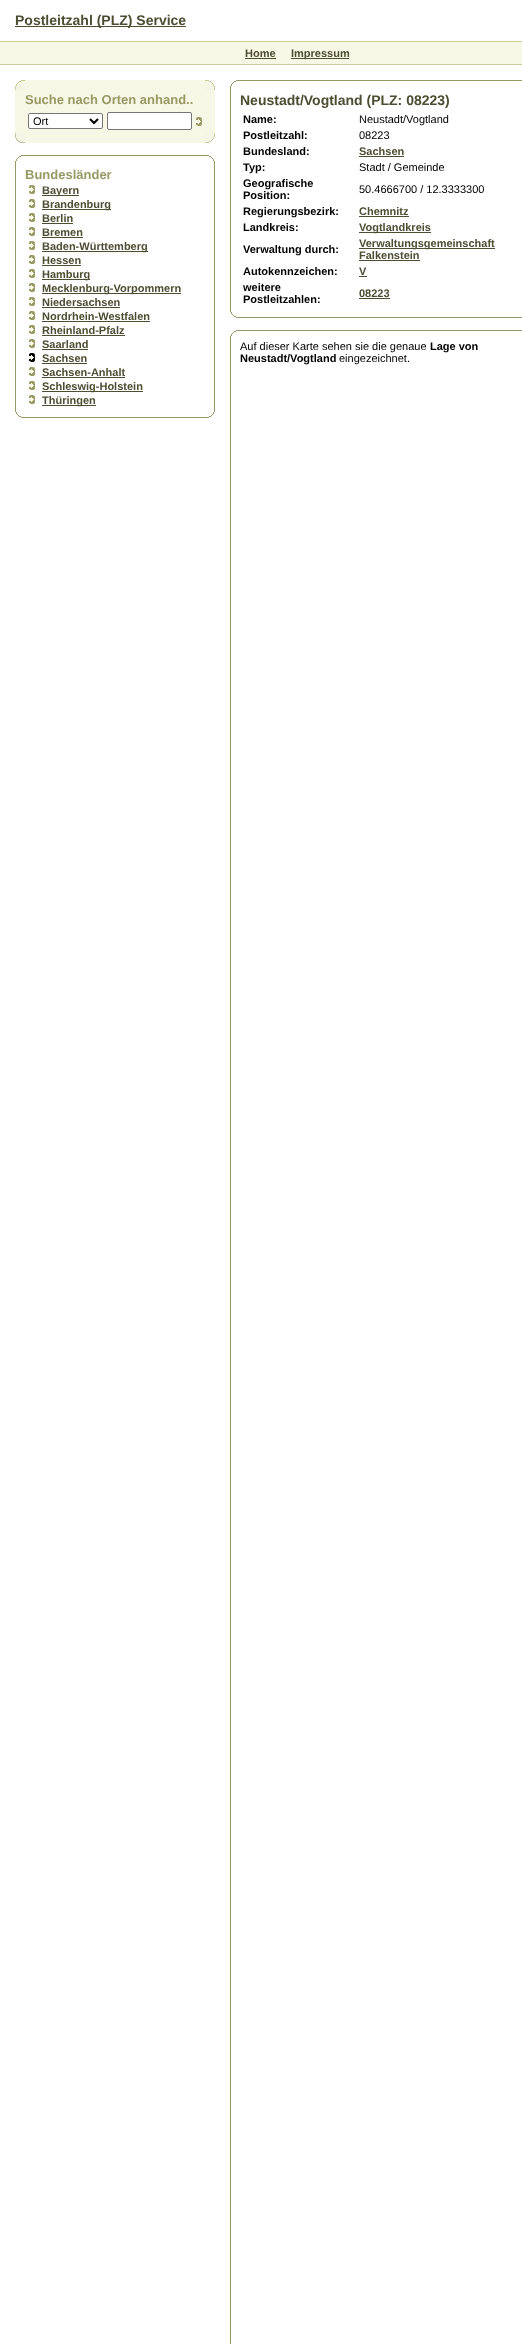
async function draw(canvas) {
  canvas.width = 522;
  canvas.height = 2344;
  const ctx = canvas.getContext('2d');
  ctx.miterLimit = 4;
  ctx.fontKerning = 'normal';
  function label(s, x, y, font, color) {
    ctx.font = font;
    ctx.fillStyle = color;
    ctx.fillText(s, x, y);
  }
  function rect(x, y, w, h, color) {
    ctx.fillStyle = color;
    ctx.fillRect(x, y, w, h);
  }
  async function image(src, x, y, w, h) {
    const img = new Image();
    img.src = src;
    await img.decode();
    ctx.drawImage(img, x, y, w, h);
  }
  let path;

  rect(0, 0, 522, 2344, '#fff');
  rect(15, 26, 171, 1, '#4d4d33');
  label('Postleitzahl (PLZ) Service', 15, 25, 'bold 14px Liberation Sans', '#4d4d33');
  rect(0, 41, 522, 1, '#cc9');
  rect(0, 42, 522, 22, '#f7f7e5');
  label('Home', 245, 57, 'bold 11px Liberation Sans', '#4d4d33');
  rect(245, 58, 31, 1, '#4d4d33');
  rect(291, 58, 58, 1, '#4d4d33');
  label('Impressum', 291, 57, 'bold 11px Liberation Sans', '#4d4d33');
  rect(0, 64, 522, 1, '#cc9');
  await image('assets/img1.png', 15, 80, 10, 10);
  rect(25, 80, 180, 10, '#f7f7e5');
  await image('assets/img2.png', 205, 80, 10, 10);
  rect(15, 90, 200, 43, '#f7f7e5');
  label('Suche nach Orten anhand..', 25, 104, 'bold 13px Liberation Sans', '#996');
  ctx.fillStyle = '#fff';
  ctx.beginPath();
  ctx.roundRect(28.5, 113.5, 74, 15, 1.5);
  ctx.fill();
  ctx.strokeStyle = '#767676';
  ctx.stroke();
  path = new Path2D('M90 119L94 123L98 119');
  ctx.strokeStyle = '#000';
  ctx.lineWidth = 2;
  ctx.stroke(path);
  label('Ort', 33, 125, '11px Liberation Sans', '#000');
  ctx.fillStyle = '#fff';
  ctx.beginPath();
  ctx.roundRect(107.5, 112.5, 84, 17, 1.5);
  ctx.fill();
  ctx.strokeStyle = '#767676';
  ctx.lineWidth = 1;
  ctx.stroke();
  await image('assets/img3.png', 196, 117, 6, 9);
  await image('assets/img4.png', 15, 133, 10, 10);
  rect(25, 133, 180, 10, '#f7f7e5');
  await image('assets/img5.png', 205, 133, 10, 10);
  await image('assets/img6.png', 15, 155, 10, 10);
  rect(25, 155, 180, 1, '#996');
  await image('assets/img7.png', 205, 155, 10, 10);
  rect(15, 165, 1, 243, '#996');
  label('Bundesländer', 25, 179, 'bold 13px Liberation Sans', '#996');
  await image('assets/img3.png', 29, 185, 6, 9);
  rect(42, 195, 37, 1, '#4d4d33');
  label('Bayern', 42, 194, 'bold 11px Liberation Sans', '#4d4d33');
  await image('assets/img3.png', 29, 199, 6, 9);
  rect(42, 209, 69, 1, '#4d4d33');
  label('Brandenburg', 42, 208, 'bold 11px Liberation Sans', '#4d4d33');
  await image('assets/img3.png', 29, 213, 6, 9);
  label('Berlin', 42, 222, 'bold 11px Liberation Sans', '#4d4d33');
  rect(42, 223, 31, 1, '#4d4d33');
  await image('assets/img3.png', 29, 227, 6, 9);
  label('Bremen', 42, 236, 'bold 11px Liberation Sans', '#4d4d33');
  rect(42, 237, 41, 1, '#4d4d33');
  await image('assets/img3.png', 29, 241, 6, 9);
  rect(42, 251, 106, 1, '#4d4d33');
  label('Baden-Württemberg', 42, 250, 'bold 11px Liberation Sans', '#4d4d33');
  await image('assets/img3.png', 29, 255, 6, 9);
  label('Hessen', 42, 264, 'bold 11px Liberation Sans', '#4d4d33');
  rect(42, 265, 39, 1, '#4d4d33');
  await image('assets/img3.png', 29, 269, 6, 9);
  rect(42, 279, 48, 1, '#4d4d33');
  label('Hamburg', 42, 278, 'bold 11px Liberation Sans', '#4d4d33');
  await image('assets/img3.png', 29, 283, 6, 9);
  rect(42, 293, 139, 1, '#4d4d33');
  label('Mecklenburg-Vorpommern', 42, 292, 'bold 11px Liberation Sans', '#4d4d33');
  await image('assets/img3.png', 29, 297, 6, 9);
  label('Niedersachsen', 42, 306, 'bold 11px Liberation Sans', '#4d4d33');
  rect(42, 307, 78, 1, '#4d4d33');
  await image('assets/img3.png', 29, 311, 6, 9);
  label('Nordrhein-Westfalen', 42, 320, 'bold 11px Liberation Sans', '#4d4d33');
  rect(42, 321, 108, 1, '#4d4d33');
  await image('assets/img3.png', 29, 325, 6, 9);
  label('Rheinland-Pfalz', 42, 334, 'bold 11px Liberation Sans', '#4d4d33');
  rect(42, 335, 83, 1, '#4d4d33');
  await image('assets/img3.png', 29, 339, 6, 9);
  label('Saarland', 42, 348, 'bold 11px Liberation Sans', '#4d4d33');
  rect(42, 349, 46, 1, '#4d4d33');
  await image('assets/img8.png', 29, 353, 6, 9);
  label('Sachsen', 42, 362, 'bold 11px Liberation Sans', '#4d4d33');
  rect(42, 363, 45, 1, '#4d4d33');
  await image('assets/img3.png', 29, 367, 6, 9);
  label('Sachsen-Anhalt', 42, 376, 'bold 11px Liberation Sans', '#4d4d33');
  rect(42, 377, 83, 1, '#4d4d33');
  await image('assets/img3.png', 29, 381, 6, 9);
  rect(42, 391, 101, 1, '#4d4d33');
  label('Schleswig-Holstein', 42, 390, 'bold 11px Liberation Sans', '#4d4d33');
  await image('assets/img3.png', 29, 395, 6, 9);
  rect(42, 405, 54, 1, '#4d4d33');
  label('Thüringen', 42, 404, 'bold 11px Liberation Sans', '#4d4d33');
  rect(214, 165, 1, 243, '#996');
  await image('assets/img9.png', 15, 408, 10, 10);
  rect(25, 417, 180, 1, '#996');
  await image('assets/img10.png', 205, 408, 10, 10);
  await image('assets/img6.png', 230, 80, 10, 10);
  rect(240, 80, 282, 1, '#996');
  rect(230, 90, 1, 218, '#996');
  label('Neustadt/Vogtland (PLZ: 08223)', 240, 105, 'bold 14px Liberation Sans', '#4d4d33');
  label('Name:', 243, 123, 'bold 11px Liberation Sans', '#000');
  label('Neustadt/Vogtland', 359, 123, '11px Liberation Sans', '#000');
  label('Postleitzahl:', 243, 139, 'bold 11px Liberation Sans', '#000');
  label('08223', 359, 139, '11px Liberation Sans', '#000');
  label('Bundesland:', 243, 155, 'bold 11px Liberation Sans', '#000');
  label('Sachsen', 359, 155, 'bold 11px Liberation Sans', '#4d4d33');
  rect(359, 156, 45, 1, '#4d4d33');
  label('Typ:', 243, 171, 'bold 11px Liberation Sans', '#000');
  label('Stadt / Gemeinde', 359, 171, '11px Liberation Sans', '#000');
  label('Geografische', 243, 187, 'bold 11px Liberation Sans', '#000');
  label('Position:', 243, 199, 'bold 11px Liberation Sans', '#000');
  label('50.4666700 / 12.3333300', 359, 193, '11px Liberation Sans', '#000');
  label('Regierungsbezirk:', 243, 215, 'bold 11px Liberation Sans', '#000');
  label('Chemnitz', 359, 215, 'bold 11px Liberation Sans', '#4d4d33');
  rect(359, 216, 50, 1, '#4d4d33');
  label('Landkreis:', 243, 231, 'bold 11px Liberation Sans', '#000');
  rect(359, 232, 72, 1, '#4d4d33');
  label('Vogtlandkreis', 359, 231, 'bold 11px Liberation Sans', '#4d4d33');
  label('Verwaltung durch:', 243, 253, 'bold 11px Liberation Sans', '#000');
  rect(359, 248, 136, 1, '#4d4d33');
  label('Verwaltungsgemeinschaft', 359, 247, 'bold 11px Liberation Sans', '#4d4d33');
  label('Falkenstein', 359, 259, 'bold 11px Liberation Sans', '#4d4d33');
  rect(359, 260, 61, 1, '#4d4d33');
  label('Autokennzeichen:', 243, 275, 'bold 11px Liberation Sans', '#000');
  label('V', 359, 275, 'bold 11px Liberation Sans', '#4d4d33');
  rect(359, 276, 8, 1, '#4d4d33');
  label('weitere', 243, 291, 'bold 11px Liberation Sans', '#000');
  label('Postleitzahlen:', 243, 303, 'bold 11px Liberation Sans', '#000');
  label('08223', 359, 297, 'bold 11px Liberation Sans', '#4d4d33');
  rect(359, 298, 31, 1, '#4d4d33');
  await image('assets/img9.png', 230, 308, 10, 10);
  rect(240, 317, 282, 1, '#996');
  await image('assets/img6.png', 230, 330, 10, 10);
  rect(240, 330, 282, 1, '#996');
  rect(230, 340, 1, 2004, '#996');
  label('Auf dieser Karte sehen sie die genaue', 240, 350, '11px Liberation Sans', '#000');
  label('Lage von', 430, 350, 'bold 11px Liberation Sans', '#000');
  label('Neustadt/Vogtland', 240, 362, 'bold 11px Liberation Sans', '#000');
  label('eingezeichnet.', 339, 362, '11px Liberation Sans', '#000');
}

draw(document.querySelector('canvas'));
